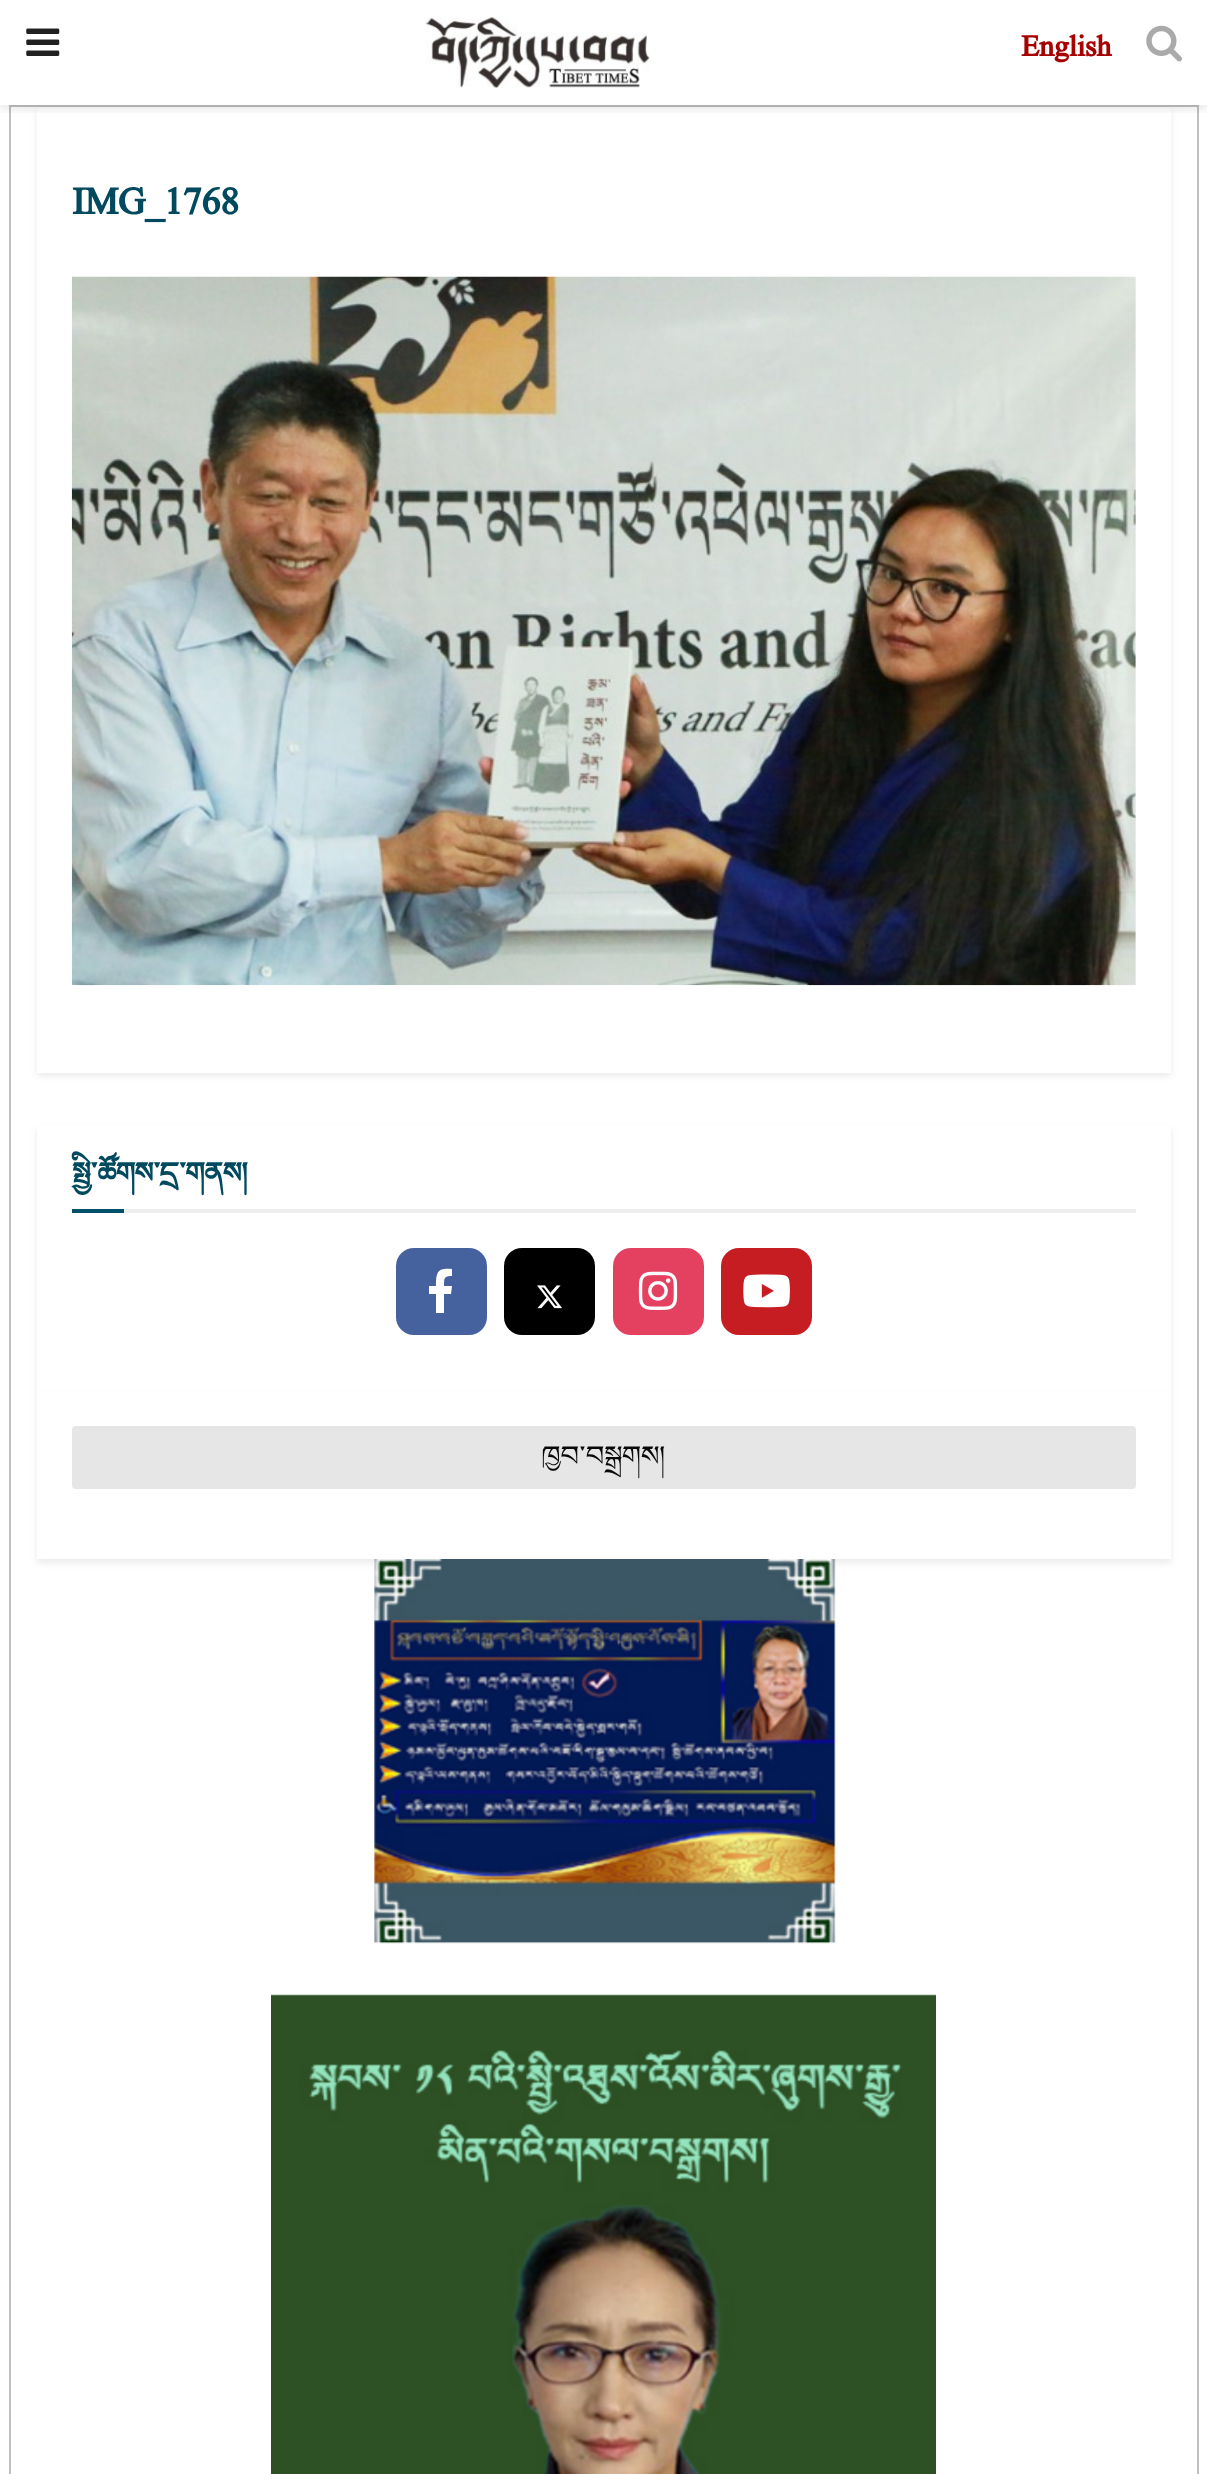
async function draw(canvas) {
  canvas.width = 1207;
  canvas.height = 2474;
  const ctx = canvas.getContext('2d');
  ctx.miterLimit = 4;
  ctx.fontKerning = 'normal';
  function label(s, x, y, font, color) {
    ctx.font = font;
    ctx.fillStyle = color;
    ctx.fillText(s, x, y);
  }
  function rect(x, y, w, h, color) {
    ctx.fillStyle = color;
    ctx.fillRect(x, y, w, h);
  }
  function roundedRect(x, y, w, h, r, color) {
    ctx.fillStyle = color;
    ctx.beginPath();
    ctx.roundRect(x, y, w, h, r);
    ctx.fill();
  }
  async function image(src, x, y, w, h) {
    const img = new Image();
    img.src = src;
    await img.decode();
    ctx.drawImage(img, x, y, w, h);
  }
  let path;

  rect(0, 0, 1207, 2474, '#fff');
  ctx.strokeStyle = '#c0c0c0';
  ctx.lineWidth = 2;
  ctx.strokeRect(10, 106, 1188, 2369);
  ctx.fillStyle = '#00000014';
  ctx.filter = 'blur(3.5px)';
  ctx.beginPath();
  ctx.rect(37, 110, 1134, 966);
  ctx.fill();
  ctx.filter = 'none';
  rect(37, 107, 1134, 966, '#fff');
  ctx.save();
  ctx.beginPath();
  ctx.rect(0, 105, 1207, 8);
  ctx.clip();
  ctx.fillStyle = '#0000001a';
  ctx.filter = 'blur(5px)';
  ctx.beginPath();
  ctx.rect(0, 4, 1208, 105);
  ctx.fill();
  ctx.filter = 'none';
  ctx.restore();
  await image('assets/img1.png', 26, 28, 34, 28);
  await image('assets/img2.png', 425, 17, 225, 71);
  label('English', 1021, 56, 'bold 44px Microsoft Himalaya', '#a60202');
  await image('assets/img3.png', 1146, 25, 36, 37);
  label('IMG_1768', 72, 214, 'bold 56px Microsoft Himalaya', '#00495e');
  rect(1135, 277, 1, 708, '#f7f7f7');
  await image('assets/img4.png', 71, 276, 1065, 710);
  ctx.fillStyle = '#00000014';
  ctx.filter = 'blur(3.5px)';
  ctx.beginPath();
  ctx.rect(37, 1129, 1134, 266);
  ctx.fill();
  ctx.filter = 'none';
  rect(37, 1125, 1134, 266, '#fff');
  rect(124, 1209, 1012, 4, '#eee');
  label('སྤྱི་ཚོགས་དྲ་གནས།', 72, 1178, 'bold 44px Microsoft Himalaya', '#00495e');
  rect(72, 1209, 52, 4, '#024f69');
  roundedRect(396, 1248, 91, 87, 18, '#45629f');
  ctx.fillStyle = '#fff';
  path = new Path2D('M451 1294H444V1313H436V1294H429V1286H436C436 1271 438 1268 452 1269V1276C444 1276 444 1278 444 1286H452Z');
  ctx.fill(path);
  roundedRect(504, 1248, 91, 87, 18, '#000');
  await image('assets/img5.png', 537, 1285, 25, 24);
  roundedRect(613, 1248, 91, 87, 18, '#e4405f');
  await image('assets/img6.png', 638, 1271, 40, 39);
  roundedRect(721, 1248, 91, 87, 18, '#c61d23');
  await image('assets/img7.png', 743, 1274, 47, 34);
  ctx.fillStyle = '#00000014';
  ctx.filter = 'blur(3.5px)';
  ctx.beginPath();
  ctx.rect(37, 1395, 1134, 168);
  ctx.fill();
  ctx.filter = 'none';
  rect(37, 1391, 1134, 168, '#fff');
  roundedRect(72, 1426, 1064, 63, 4, '#e6e6e6');
  label('ཁྱབ་བསྒྲགས།', 542, 1461, '44px Microsoft Himalaya', '#090909');
  await image('assets/img8.png', 374, 1559, 462, 385);
  await image('assets/img9.png', 271, 1994, 665, 480);
}

draw(document.querySelector('canvas'));
